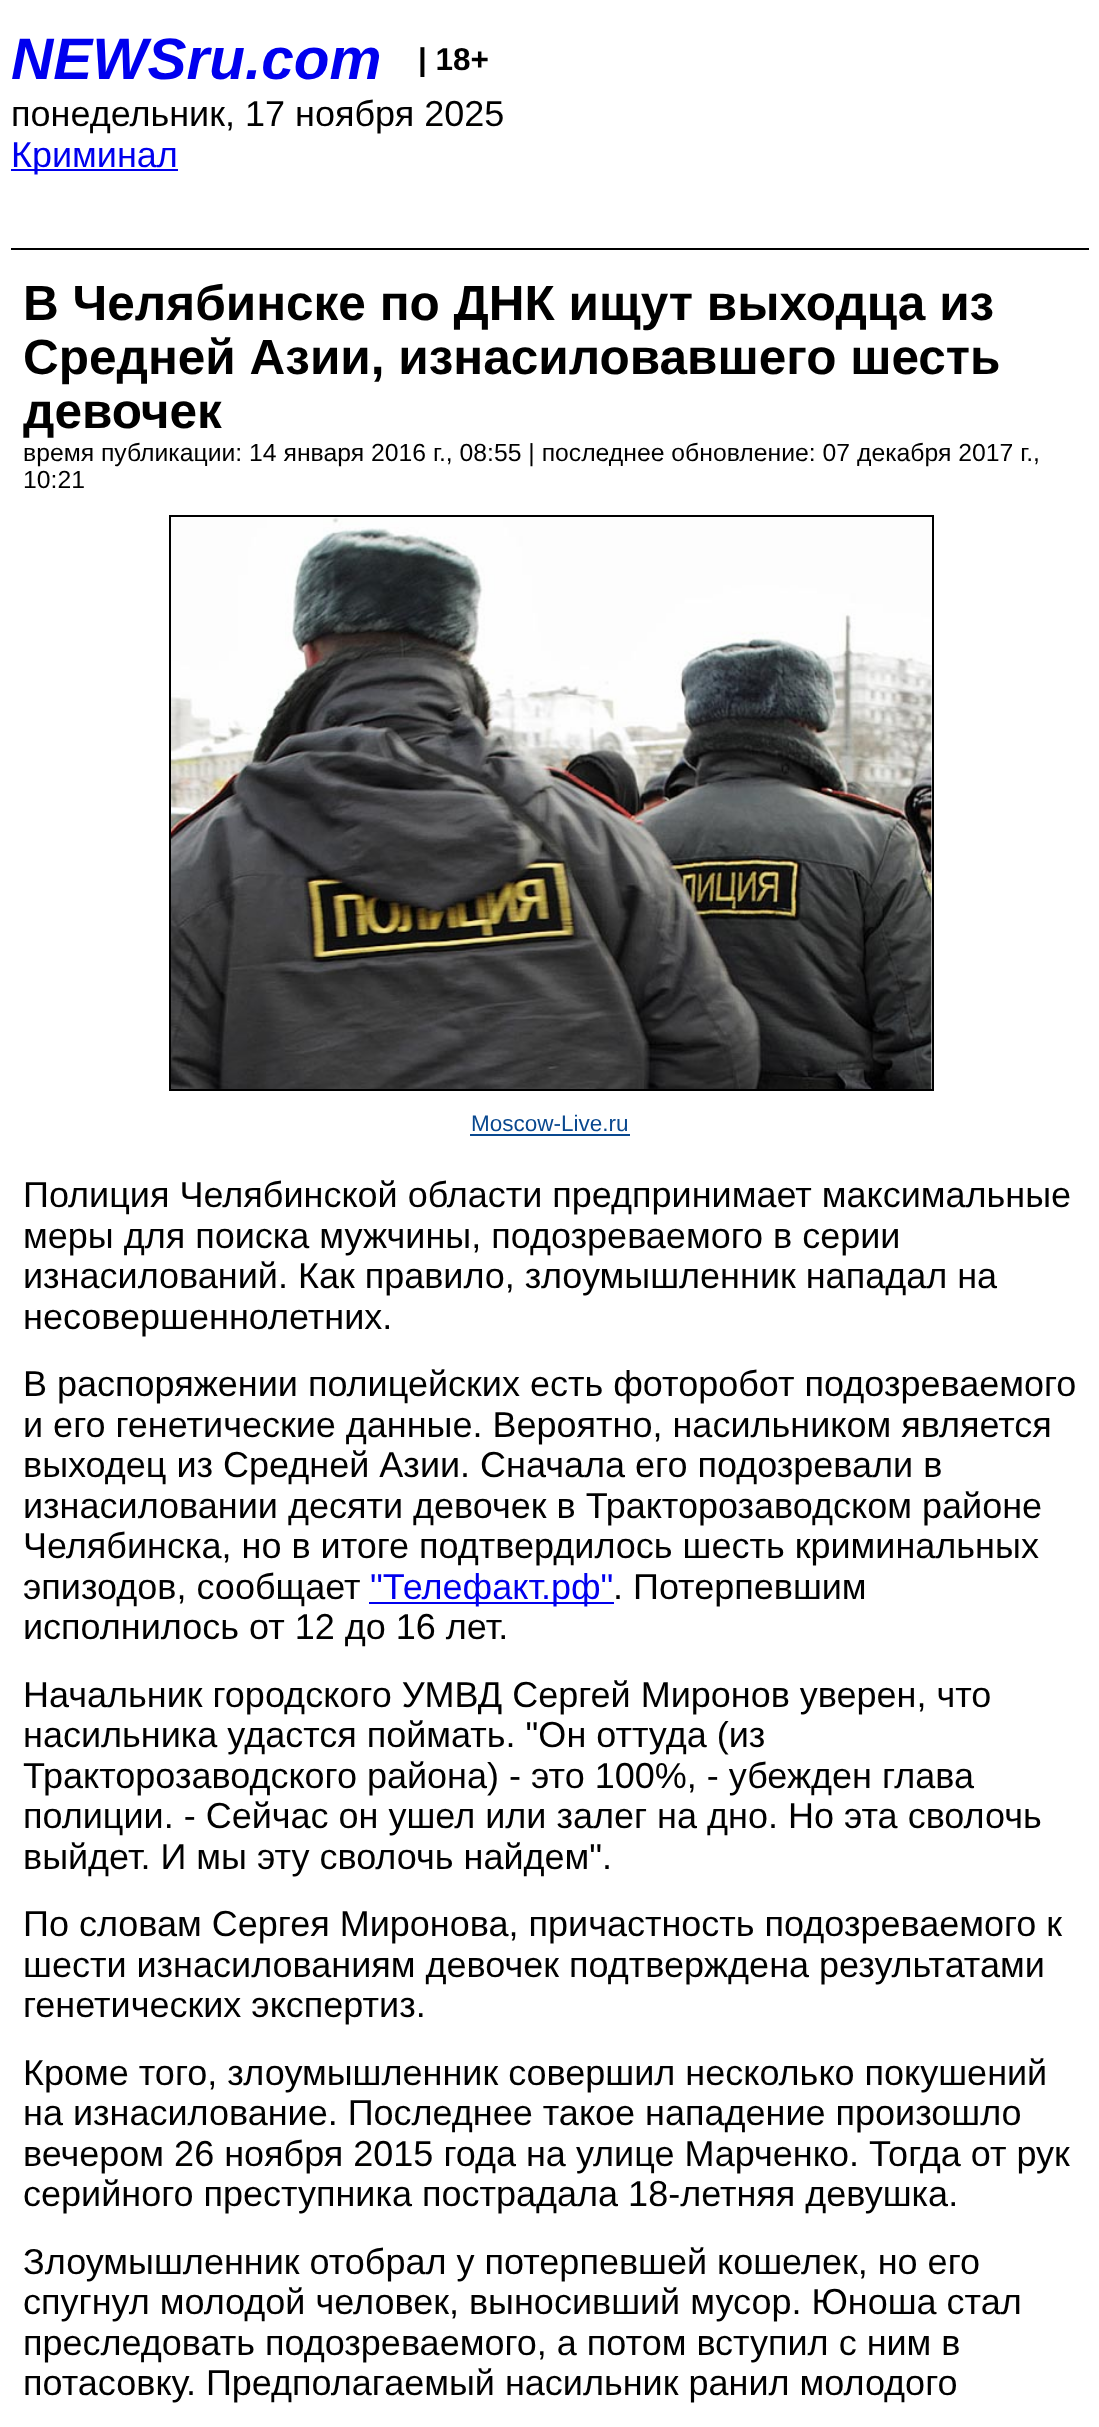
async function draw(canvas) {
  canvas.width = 1099;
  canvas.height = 2427;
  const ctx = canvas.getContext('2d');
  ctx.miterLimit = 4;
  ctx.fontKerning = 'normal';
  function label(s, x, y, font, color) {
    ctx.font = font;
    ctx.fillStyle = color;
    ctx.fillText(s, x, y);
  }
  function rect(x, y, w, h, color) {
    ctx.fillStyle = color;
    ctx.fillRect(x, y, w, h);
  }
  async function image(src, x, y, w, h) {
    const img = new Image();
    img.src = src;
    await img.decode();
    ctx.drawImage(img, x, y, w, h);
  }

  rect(0, 0, 1099, 2427, '#fff');
  rect(11, 248, 1078, 2, '#000');
  label('NEWSru.com', 11, 79, 'italic bold 58.5px Liberation Sans', '#00e');
  label('| 18+', 418, 70, 'bold 31.5px Liberation Sans', '#000');
  label('понедельник, 17 ноября 2025', 11, 126, '36px Liberation Sans', '#000');
  rect(11, 169, 167, 2, '#00e');
  label('Криминал', 11, 167, '36px Liberation Sans', '#00e');
  label('В Челябинске по ДНК ищут выходца из', 23, 320, 'bold 49.5px Liberation Sans', '#000');
  label('Средней Азии, изнасиловавшего шесть', 23, 374, 'bold 49.5px Liberation Sans', '#000');
  label('девочек', 23, 428, 'bold 49.5px Liberation Sans', '#000');
  label('время публикации: 14 января 2016 г., 08:55 | последнее обновление: 07 декабря 2017 г.,', 23, 461, '24.75px Liberation Sans', '#000');
  label('10:21', 23, 488, '24.75px Liberation Sans', '#000');
  ctx.strokeStyle = '#000';
  ctx.lineWidth = 2;
  ctx.strokeRect(170, 516, 763, 574);
  await image('assets/img1.png', 171, 517, 761, 572);
  label('Moscow-Live.ru', 471, 1131, '22.5px Liberation Sans', '#09488f');
  rect(470, 1134, 160, 2, '#09488f');
  label('Полиция Челябинской области предпринимает максимальные', 23, 1207, '36px Liberation Sans', '#000');
  label('меры для поиска мужчины, подозреваемого в серии', 23, 1248, '36px Liberation Sans', '#000');
  label('изнасилований. Как правило, злоумышленник нападал на', 23, 1288, '36px Liberation Sans', '#000');
  label('несовершеннолетних.', 23, 1329, '36px Liberation Sans', '#000');
  label('В распоряжении полицейских есть фоторобот подозреваемого', 23, 1396, '36px Liberation Sans', '#000');
  label('и его генетические данные. Вероятно, насильником является', 23, 1437, '36px Liberation Sans', '#000');
  label('выходец из Средней Азии. Сначала его подозревали в', 23, 1477, '36px Liberation Sans', '#000');
  label('изнасиловании десяти девочек в Тракторозаводском районе', 23, 1518, '36px Liberation Sans', '#000');
  label('Челябинска, но в итоге подтвердилось шесть криминальных', 23, 1558, '36px Liberation Sans', '#000');
  label('эпизодов, сообщает', 23, 1599, '36px Liberation Sans', '#000');
  rect(369, 1602, 245, 2, '#00e');
  label('"Телефакт.рф"', 370, 1599, '36px Liberation Sans', '#00e');
  label('. Потерпевшим', 613, 1599, '36px Liberation Sans', '#000');
  label('исполнилось от 12 до 16 лет.', 23, 1639, '36px Liberation Sans', '#000');
  label('Начальник городского УМВД Сергей Миронов уверен, что', 23, 1707, '36px Liberation Sans', '#000');
  label('насильника удастся поймать. "Он оттуда (из', 23, 1747, '36px Liberation Sans', '#000');
  label('Тракторозаводского района) - это 100%, - убежден глава', 23, 1788, '36px Liberation Sans', '#000');
  label('полиции. - Сейчас он ушел или залег на дно. Но эта сволочь', 23, 1828, '36px Liberation Sans', '#000');
  label('выйдет. И мы эту сволочь найдем".', 23, 1869, '36px Liberation Sans', '#000');
  label('По словам Сергея Миронова, причастность подозреваемого к', 23, 1936, '36px Liberation Sans', '#000');
  label('шести изнасилованиям девочек подтверждена результатами', 23, 1977, '36px Liberation Sans', '#000');
  label('генетических экспертиз.', 23, 2017, '36px Liberation Sans', '#000');
  label('Кроме того, злоумышленник совершил несколько покушений', 23, 2085, '36px Liberation Sans', '#000');
  label('на изнасилование. Последнее такое нападение произошло', 23, 2125, '36px Liberation Sans', '#000');
  label('вечером 26 ноября 2015 года на улице Марченко. Тогда от рук', 23, 2166, '36px Liberation Sans', '#000');
  label('серийного преступника пострадала 18-летняя девушка.', 23, 2206, '36px Liberation Sans', '#000');
  label('Злоумышленник отобрал у потерпевшей кошелек, но его', 23, 2274, '36px Liberation Sans', '#000');
  label('спугнул молодой человек, выносивший мусор. Юноша стал', 23, 2314, '36px Liberation Sans', '#000');
  label('преследовать подозреваемого, а потом вступил с ним в', 23, 2355, '36px Liberation Sans', '#000');
  label('потасовку. Предполагаемый насильник ранил молодого', 23, 2395, '36px Liberation Sans', '#000');
}

draw(document.querySelector('canvas'));
